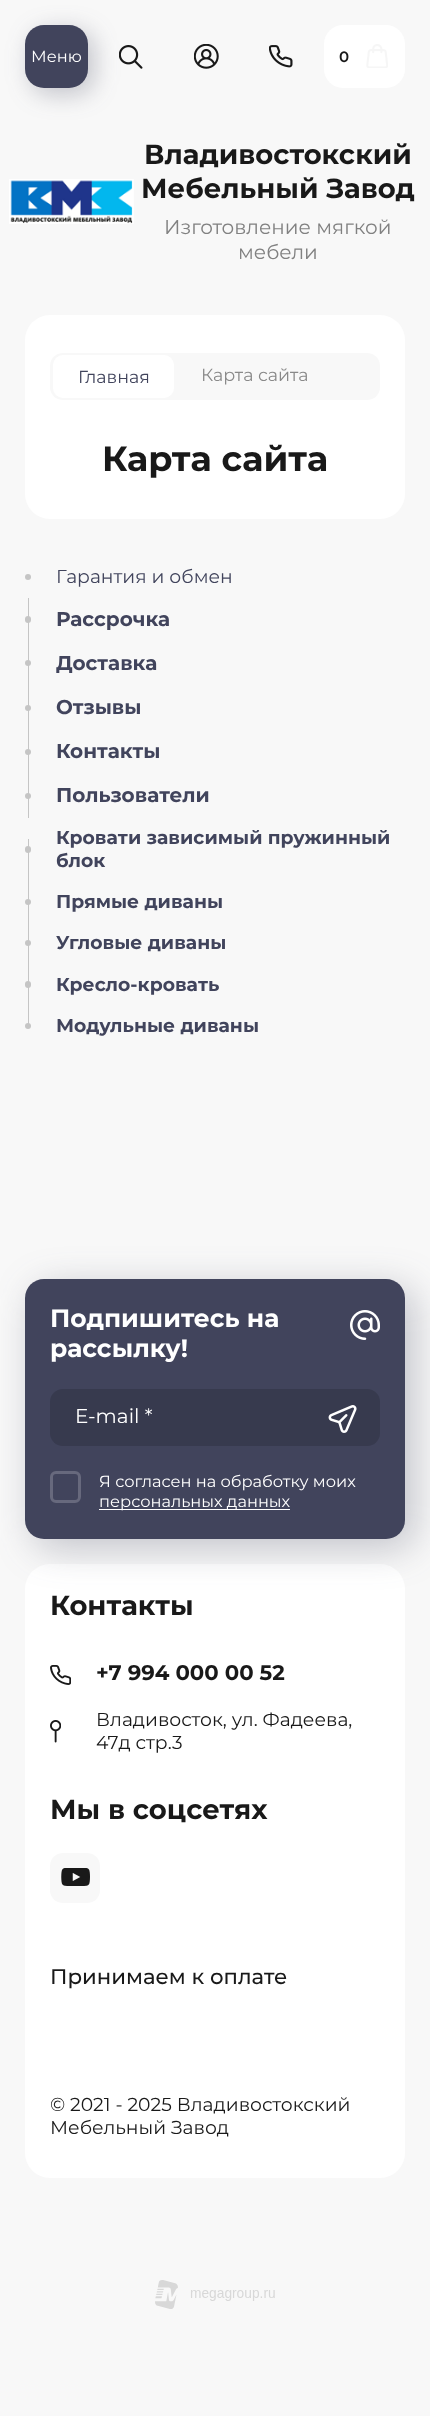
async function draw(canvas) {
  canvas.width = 430;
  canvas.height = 2416;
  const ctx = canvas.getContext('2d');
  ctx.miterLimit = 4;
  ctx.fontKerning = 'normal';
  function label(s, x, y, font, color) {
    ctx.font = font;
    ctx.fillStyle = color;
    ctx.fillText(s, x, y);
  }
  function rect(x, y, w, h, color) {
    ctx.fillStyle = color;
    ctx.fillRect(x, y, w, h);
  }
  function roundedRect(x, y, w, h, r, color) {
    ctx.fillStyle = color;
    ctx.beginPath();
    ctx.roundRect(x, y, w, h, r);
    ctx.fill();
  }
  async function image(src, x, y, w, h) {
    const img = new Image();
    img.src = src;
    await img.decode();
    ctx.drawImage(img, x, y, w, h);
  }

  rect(0, 0, 430, 2416, '#f8f8f8');
  ctx.fillStyle = '#41445c4d';
  ctx.filter = 'blur(12.5px)';
  ctx.beginPath();
  ctx.roundRect(31, 31, 63, 63, 19);
  ctx.fill();
  ctx.filter = 'none';
  roundedRect(25, 25, 63, 63, 19, '#41445c');
  label('Меню', 31, 62, '16.25px Montserrat', '#fff');
  await image('assets/img1.png', 119, 45, 24, 24);
  await image('assets/img2.png', 194, 44, 25, 25);
  await image('assets/img3.png', 269, 45, 24, 23);
  roundedRect(324, 25, 81, 63, 19, '#fff');
  label('0', 339, 62, '600 15px Montserrat', '#191919');
  await image('assets/img4.png', 366, 44, 22, 24);
  await image('assets/img5.png', 9, 179, 125, 45);
  label('Владивостокский', 144, 164, 'bold 27.5px Montserrat', '#191919');
  label('Мебельный Завод', 141, 198, 'bold 27.5px Montserrat', '#191919');
  label('Изготовление мягкой', 164, 234, '20px Montserrat', '#818181');
  label('мебели', 238, 259, '20px Montserrat', '#818181');
  roundedRect(25, 315, 380, 204, 25, '#fff');
  roundedRect(50, 353, 330, 47, 13, '#f8f8f8');
  roundedRect(53, 355, 121, 43, 10, '#fff');
  label('Главная', 78, 383, '17.5px Montserrat', '#41445c');
  label('Карта сайта', 201, 381, '17.5px Montserrat', '#898989');
  label('Карта сайта', 102, 471, 'bold 35px Montserrat', '#191919');
  ctx.fillStyle = '#c5c5c5';
  ctx.beginPath();
  ctx.arc(28, 577, 3, 0, 2 * Math.PI);
  ctx.fill();
  label('Гарантия и обмен', 56, 583, '18.75px Montserrat', '#41445c');
  rect(28, 598, 1, 220, '#c5c5c5');
  roundedRect(25, 616, 6, 7, 3, '#c5c5c5');
  label('Рассрочка', 56, 626, 'bold 20px Montserrat', '#41445c');
  ctx.fillStyle = '#c5c5c5';
  ctx.beginPath();
  ctx.arc(28, 663, 3, 0, 2 * Math.PI);
  ctx.fill();
  label('Доставка', 56, 670, 'bold 20px Montserrat', '#41445c');
  ctx.fillStyle = '#c5c5c5';
  ctx.beginPath();
  ctx.arc(28, 708, 3, 0, 2 * Math.PI);
  ctx.fill();
  label('Отзывы', 56, 714, 'bold 20px Montserrat', '#41445c');
  ctx.fillStyle = '#c5c5c5';
  ctx.beginPath();
  ctx.arc(28, 752, 3, 0, 2 * Math.PI);
  ctx.fill();
  label('Контакты', 56, 758, 'bold 20px Montserrat', '#41445c');
  ctx.fillStyle = '#c5c5c5';
  ctx.beginPath();
  ctx.arc(28, 796, 3, 0, 2 * Math.PI);
  ctx.fill();
  label('Пользователи', 56, 802, 'bold 20px Montserrat', '#41445c');
  rect(28, 839, 1, 187, '#c5c5c5');
  label('Кровати зависимый пружинный', 56, 844, 'bold 18.75px Montserrat', '#41445c');
  roundedRect(25, 846, 6, 7, 3, '#c5c5c5');
  label('блок', 56, 867, 'bold 18.75px Montserrat', '#41445c');
  ctx.fillStyle = '#c5c5c5';
  ctx.beginPath();
  ctx.arc(28, 902, 3, 0, 2 * Math.PI);
  ctx.fill();
  label('Прямые диваны', 56, 908, 'bold 18.75px Montserrat', '#41445c');
  ctx.fillStyle = '#c5c5c5';
  ctx.beginPath();
  ctx.arc(28, 943, 3, 0, 2 * Math.PI);
  ctx.fill();
  label('Угловые диваны', 56, 949, 'bold 18.75px Montserrat', '#41445c');
  roundedRect(25, 981, 6, 7, 3, '#c5c5c5');
  label('Кресло-кровать', 56, 991, 'bold 18.75px Montserrat', '#41445c');
  ctx.fillStyle = '#c5c5c5';
  ctx.beginPath();
  ctx.arc(28, 1026, 3, 0, 2 * Math.PI);
  ctx.fill();
  label('Модульные диваны', 56, 1032, 'bold 18.75px Montserrat', '#41445c');
  roundedRect(25, 1564, 380, 614, 25, '#fff');
  ctx.fillStyle = '#41445c4d';
  ctx.filter = 'blur(19px)';
  ctx.beginPath();
  ctx.roundRect(34, 1288, 380, 260, 19);
  ctx.fill();
  ctx.filter = 'none';
  roundedRect(25, 1279, 380, 260, 19, '#41445c');
  label('Подпишитесь на', 50, 1327, 'bold 25px Montserrat', '#fff');
  await image('assets/img6.png', 350, 1310, 30, 30);
  label('рассылку!', 50, 1357, 'bold 25px Montserrat', '#fff');
  roundedRect(50, 1389, 330, 57, 13, '#373a4e');
  label('E-mail *', 75, 1423, '20px Montserrat', '#fff');
  await image('assets/img7.png', 328, 1405, 29, 28);
  ctx.beginPath();
  ctx.roundRect(51.5, 1472.5, 28, 29, 4.5);
  ctx.strokeStyle = '#67697d';
  ctx.lineWidth = 3;
  ctx.stroke();
  label('Я согласен на обработку моих', 99, 1487, '16.25px Montserrat', '#fff');
  rect(99, 1509, 191, 1, '#fff');
  label('персональных данных', 99, 1507, '16.25px Montserrat', '#fff');
  label('Контакты', 50, 1615, 'bold 27.5px Montserrat', '#191919');
  await image('assets/img8.png', 50, 1665, 21, 20);
  label('+7 994 000 00 52', 96, 1680, 'bold 21.25px Montserrat', '#191919');
  await image('assets/img9.png', 50, 1720, 11, 23);
  label('Владивосток, ул. Фадеева,', 96, 1726, '18.75px Montserrat', '#191919');
  label('47д стр.3', 96, 1749, '18.75px Montserrat', '#191919');
  label('Мы в соцсетях', 50, 1819, 'bold 27.5px Montserrat', '#191919');
  roundedRect(50, 1853, 50, 50, 13, '#f8f8f8');
  await image('assets/img10.png', 61, 1868, 29, 18);
  label('Принимаем к оплате', 50, 1984, '500 21.25px Montserrat', '#191919');
  label('© 2021 - 2025 Владивостокский', 50, 2111, '18.75px Montserrat', '#191919');
  label('Мебельный Завод', 50, 2134, '18.75px Montserrat', '#191919');
  await image('assets/img11.png', 155, 2280, 120, 29);
}

draw(document.querySelector('canvas'));
